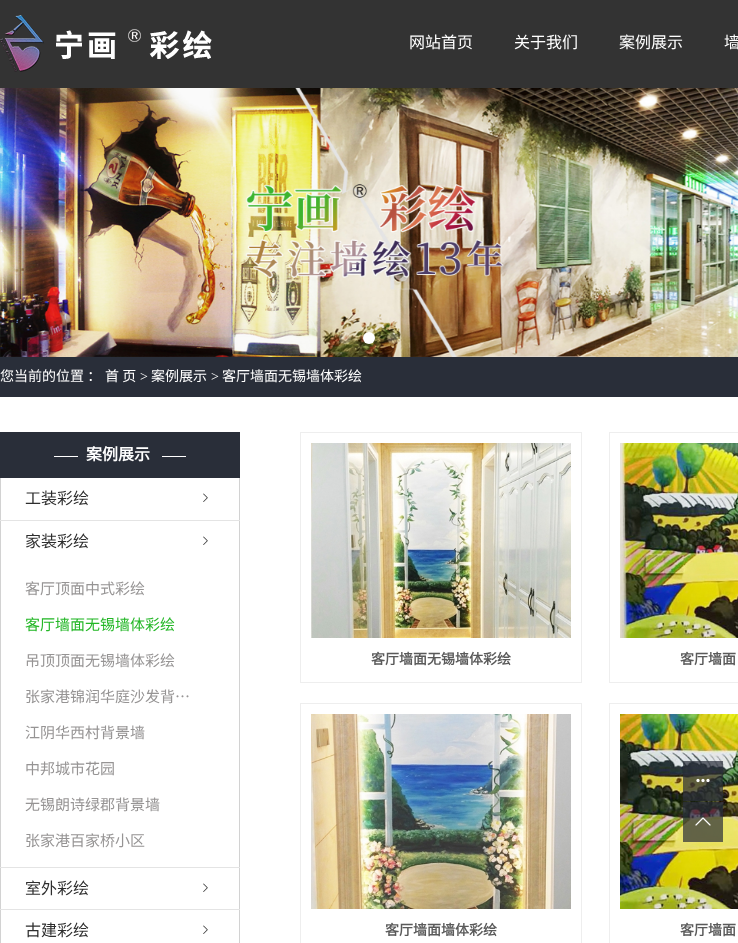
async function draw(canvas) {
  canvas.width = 738;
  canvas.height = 943;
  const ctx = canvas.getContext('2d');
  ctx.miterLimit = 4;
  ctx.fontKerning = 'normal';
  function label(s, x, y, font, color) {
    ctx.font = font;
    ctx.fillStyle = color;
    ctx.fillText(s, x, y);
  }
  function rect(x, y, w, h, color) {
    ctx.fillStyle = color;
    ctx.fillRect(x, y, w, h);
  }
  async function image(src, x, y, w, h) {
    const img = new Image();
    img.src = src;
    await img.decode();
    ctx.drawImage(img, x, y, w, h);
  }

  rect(0, 0, 738, 943, '#fff');
  rect(0, 0, 738, 88, '#333');
  await image('assets/img1.png', 0, 15, 212, 57);
  label('网站首页', 409, 48, '16px Noto Sans CJK SC', '#fff');
  label('关于我们', 514, 48, '16px Noto Sans CJK SC', '#fff');
  label('案例展示', 619, 48, '16px Noto Sans CJK SC', '#fff');
  label('墙', 724, 48, '16px Noto Sans CJK SC', '#fff');
  await image('assets/img2.png', 0, 88, 738, 269);
  ctx.fillStyle = '#ffffff33';
  ctx.beginPath();
  ctx.arc(345, 338, 6, 0, 2 * Math.PI);
  ctx.fill();
  ctx.fillStyle = '#fff';
  ctx.beginPath();
  ctx.arc(369, 338, 6, 0, 2 * Math.PI);
  ctx.fill();
  ctx.fillStyle = '#ffffff33';
  ctx.beginPath();
  ctx.arc(393, 338, 6, 0, 2 * Math.PI);
  ctx.fill();
  rect(0, 357, 738, 40, '#292e39');
  label('您当前的位置 ：', 0, 381, '14px Noto Sans CJK SC', '#fff');
  label('首 页', 105, 381, '14px Noto Sans CJK SC', '#fff');
  label('>', 140, 381, '14px Liberation Serif', '#fff');
  label('案例展示', 151, 381, '14px Noto Sans CJK SC', '#fff');
  label('>', 211, 381, '14px Liberation Serif', '#fff');
  label('客厅墙面无锡墙体彩绘', 222, 381, '14px Noto Sans CJK SC', '#fff');
  rect(0, 432, 240, 46, '#292e39');
  rect(54, 456, 24, 1, '#fff');
  label('案例展示', 86, 460, 'bold 16px Noto Sans CJK SC', '#fff');
  rect(162, 456, 24, 1, '#fff');
  rect(239, 478, 1, 465, '#d2d2d2');
  rect(0, 478, 1, 465, '#d2d2d2');
  label('工装彩绘', 25, 504, '16px Noto Sans CJK SC', '#2e2e2e');
  await image('assets/img3.png', 203, 493, 5, 9);
  rect(0, 520, 240, 1, '#e4e4e4');
  label('家装彩绘', 25, 547, '16px Noto Sans CJK SC', '#2e2e2e');
  await image('assets/img3.png', 203, 536, 5, 9);
  label('客厅顶面中式彩绘', 25, 594, '15px Noto Sans CJK SC', '#969494');
  label('客厅墙面无锡墙体彩绘', 25, 630, '15px Noto Sans CJK SC', '#24b727');
  label('吊顶顶面无锡墙体彩绘', 25, 666, '15px Noto Sans CJK SC', '#969494');
  label('张家港锦润华庭沙发背…', 25, 702, '15px Noto Sans CJK SC', '#969494');
  label('江阴华西村背景墙', 25, 738, '15px Noto Sans CJK SC', '#969494');
  label('中邦城市花园', 25, 774, '15px Noto Sans CJK SC', '#969494');
  label('无锡朗诗绿郡背景墙', 25, 810, '15px Noto Sans CJK SC', '#969494');
  label('张家港百家桥小区', 25, 846, '15px Noto Sans CJK SC', '#969494');
  rect(0, 867, 240, 1, '#e4e4e4');
  label('室外彩绘', 25, 894, '16px Noto Sans CJK SC', '#2e2e2e');
  await image('assets/img3.png', 203, 883, 5, 9);
  rect(0, 909, 240, 1, '#e4e4e4');
  label('古建彩绘', 25, 936, '16px Noto Sans CJK SC', '#2e2e2e');
  await image('assets/img3.png', 203, 925, 5, 9);
  ctx.strokeStyle = '#eee';
  ctx.strokeRect(300.5, 432.5, 281, 250);
  await image('assets/img4.png', 311, 443, 260, 195);
  label('客厅墙面无锡墙体彩绘', 371, 664, 'bold 14px Noto Sans CJK SC', '#5a5a5a');
  ctx.strokeRect(609.5, 432.5, 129, 250);
  await image('assets/img5.png', 620, 443, 118, 195);
  label('客厅墙面', 680, 664, 'bold 14px Noto Sans CJK SC', '#5a5a5a');
  ctx.strokeRect(300.5, 703.5, 281, 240);
  await image('assets/img6.png', 311, 714, 260, 195);
  label('客厅墙面墙体彩绘', 385, 935, 'bold 14px Noto Sans CJK SC', '#5a5a5a');
  ctx.strokeRect(609.5, 703.5, 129, 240);
  await image('assets/img7.png', 620, 714, 118, 195);
  label('客厅墙面', 680, 935, 'bold 14px Noto Sans CJK SC', '#5a5a5a');
  rect(683, 761, 40, 40, '#292e39b3');
  await image('assets/img8.png', 696, 778, 14, 5);
  rect(683, 802, 40, 40, '#292e39b3');
  await image('assets/img9.png', 695, 817, 16, 9);
}

draw(document.querySelector('canvas'));
